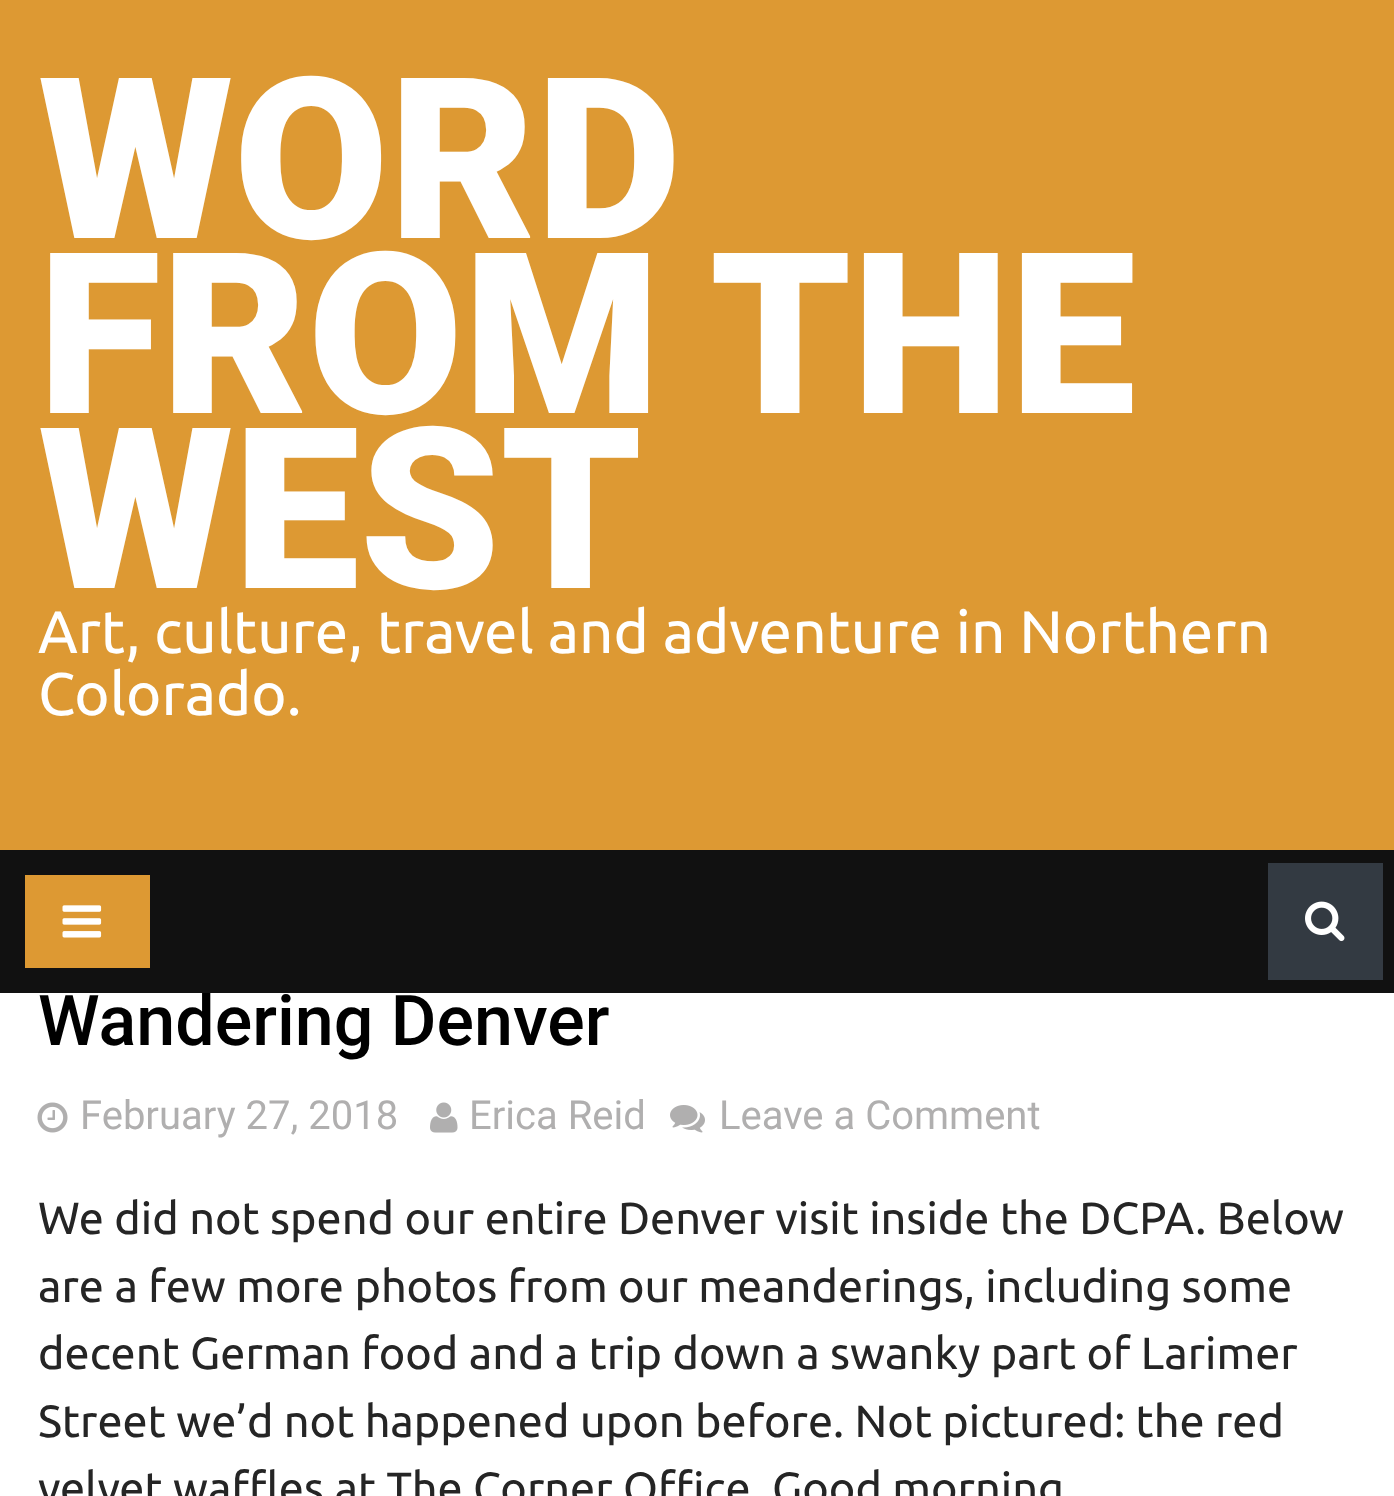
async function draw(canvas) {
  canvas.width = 1394;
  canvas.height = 1496;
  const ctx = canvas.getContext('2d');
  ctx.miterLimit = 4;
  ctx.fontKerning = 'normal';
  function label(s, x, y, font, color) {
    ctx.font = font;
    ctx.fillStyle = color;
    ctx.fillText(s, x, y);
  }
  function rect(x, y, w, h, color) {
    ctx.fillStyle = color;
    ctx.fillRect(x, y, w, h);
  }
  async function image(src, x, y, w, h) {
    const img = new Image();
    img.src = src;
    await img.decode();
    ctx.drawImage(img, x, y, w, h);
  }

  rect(0, 0, 1394, 1496, '#fff');
  rect(0, 0, 1394, 850, '#d93');
  label('WORD', 38, 238, '900 225px Roboto', '#fff');
  label('FROM THE', 38, 413, '900 225px Roboto', '#fff');
  label('WEST', 38, 588, '900 225px Roboto', '#fff');
  label('Art, culture, travel and adventure in Northern', 38, 653, '60px Ubuntu', '#fff');
  label('Colorado.', 38, 715, '60px Ubuntu', '#fff');
  label('Wandering Denver', 38, 1045, '500 70px Roboto', '#000');
  rect(0, 850, 1394, 143, '#111');
  rect(25, 875, 125, 93, '#d93');
  await image('assets/img1.png', 62, 905, 40, 33);
  rect(1268, 863, 115, 117, '#333a42');
  await image('assets/img2.png', 1305, 901, 40, 41);
  await image('assets/img3.png', 37, 1102, 31, 31);
  label('February 27, 2018', 80, 1129, '40px Roboto', '#b0afaf');
  await image('assets/img4.png', 430, 1102, 28, 31);
  label('Erica Reid', 469, 1129, '40px Roboto', '#b0afaf');
  await image('assets/img5.png', 670, 1105, 35, 28);
  label('Leave a Comment', 719, 1129, '40px Roboto', '#b0afaf');
  label('We did not spend our entire Denver visit inside the DCPA. Below', 38, 1234, '45px Ubuntu', '#252525');
  label('are a few more photos from our meanderings, including some', 38, 1302, '45px Ubuntu', '#252525');
  label('decent German food and a trip down a swanky part of Larimer', 38, 1369, '45px Ubuntu', '#252525');
  label('Street we’d not happened upon before. Not pictured: the red', 38, 1437, '45px Ubuntu', '#252525');
  label('velvet waffles at The Corner Office. Good morning', 38, 1504, '45px Ubuntu', '#252525');
}

draw(document.querySelector('canvas'));
